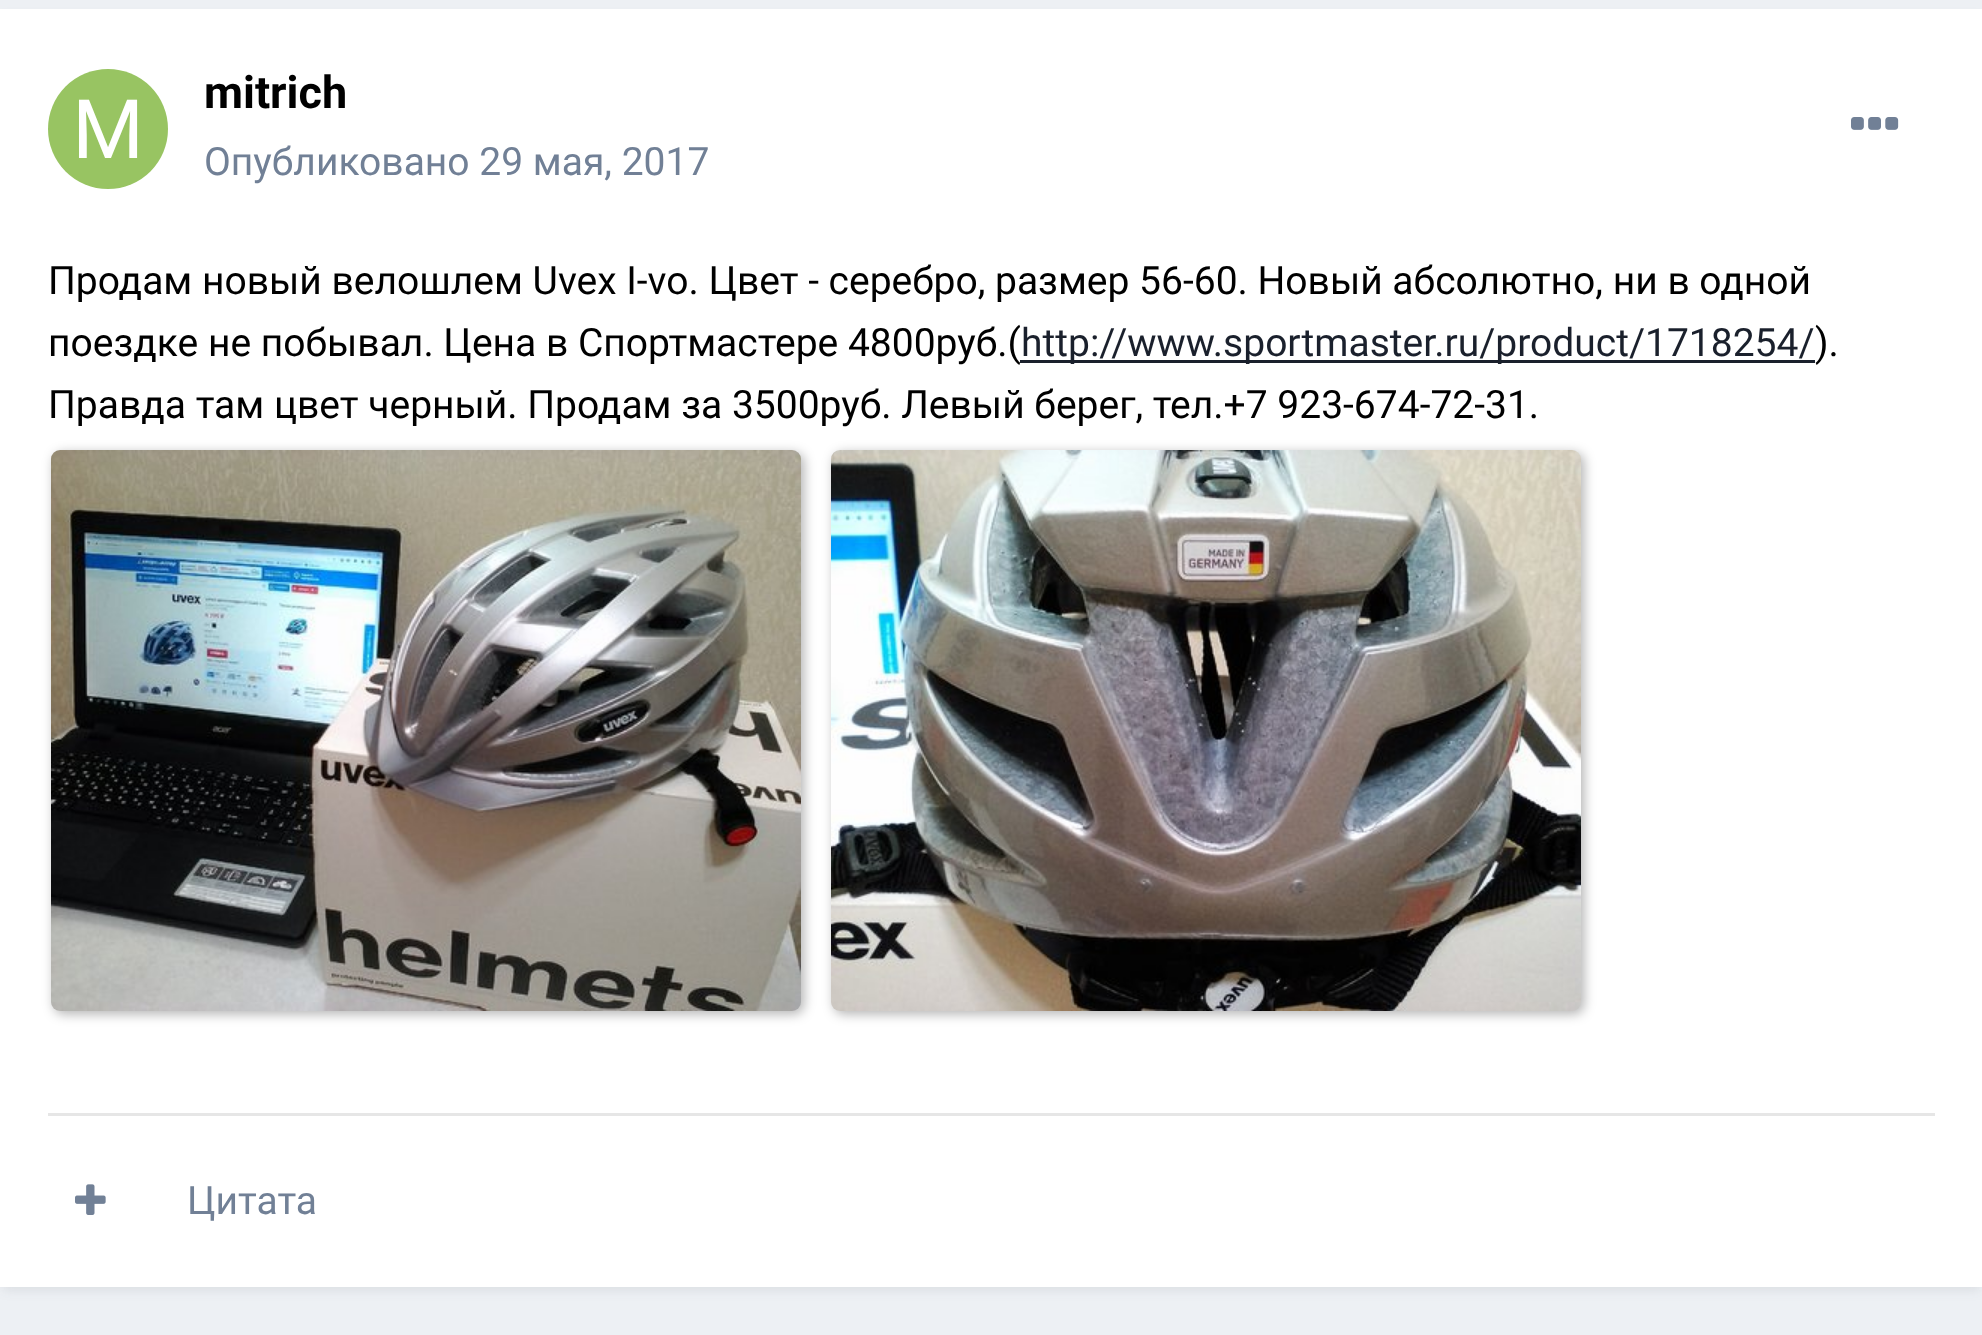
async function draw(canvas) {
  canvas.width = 1982;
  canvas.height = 1335;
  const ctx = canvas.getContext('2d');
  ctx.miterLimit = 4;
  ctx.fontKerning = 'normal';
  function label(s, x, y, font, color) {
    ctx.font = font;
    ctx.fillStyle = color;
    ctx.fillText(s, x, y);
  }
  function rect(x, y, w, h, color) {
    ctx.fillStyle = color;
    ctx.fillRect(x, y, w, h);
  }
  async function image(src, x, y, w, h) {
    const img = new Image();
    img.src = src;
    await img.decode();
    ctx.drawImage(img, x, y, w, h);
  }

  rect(0, 0, 1982, 1335, '#edf0f4');
  ctx.fillStyle = '#2d37481a';
  ctx.filter = 'blur(6px)';
  ctx.beginPath();
  ctx.rect(3, 18, 1977, 1272);
  ctx.fill();
  ctx.filter = 'none';
  rect(0, 9, 1982, 1278, '#fff');
  await image('assets/img1.png', 48, 69, 120, 120);
  label('mitrich', 204, 108, 'bold 45px Roboto', '#000');
  label('Опубликовано 29 мая, 2017', 204, 175, '39px Roboto', '#718096');
  await image('assets/img2.png', 1851, 117, 48, 13);
  label('Продам новый велошлем Uvex I-vo. Цвет - серебро, размер 56-60. Новый абсолютно, ни в одной', 48, 294, '39px Roboto', '#000');
  label('поездке не побывал. Цена в Спортмастере 4800руб.(', 48, 356, '39px Roboto', '#000');
  rect(1020, 360, 795, 3, '#1a202c');
  label('http://www.sportmaster.ru/product/1718254/', 1021, 356, '39px Roboto', '#1a202c');
  label(').', 1815, 356, '39px Roboto', '#000');
  label('Правда там цвет черный. Продам за 3500руб. Левый берег, тел.+7 923-674-72-31.', 48, 418, '39px Roboto', '#000');
  ctx.fillStyle = '#0000004d';
  ctx.filter = 'blur(6px)';
  ctx.beginPath();
  ctx.roundRect(54, 453, 750, 561, 9);
  ctx.fill();
  ctx.filter = 'none';
  ctx.filter = 'blur(6px)';
  ctx.beginPath();
  ctx.roundRect(834, 453, 750, 561, 9);
  ctx.fill();
  ctx.filter = 'none';
  await image('assets/img3.png', 51, 450, 750, 561);
  await image('assets/img4.png', 831, 450, 750, 561);
  rect(48, 1113, 1887, 3, '#e6e6e6');
  await image('assets/img5.png', 75, 1184, 31, 31);
  label('Цитата', 187, 1214, '39px Roboto', '#718096');
}

draw(document.querySelector('canvas'));
